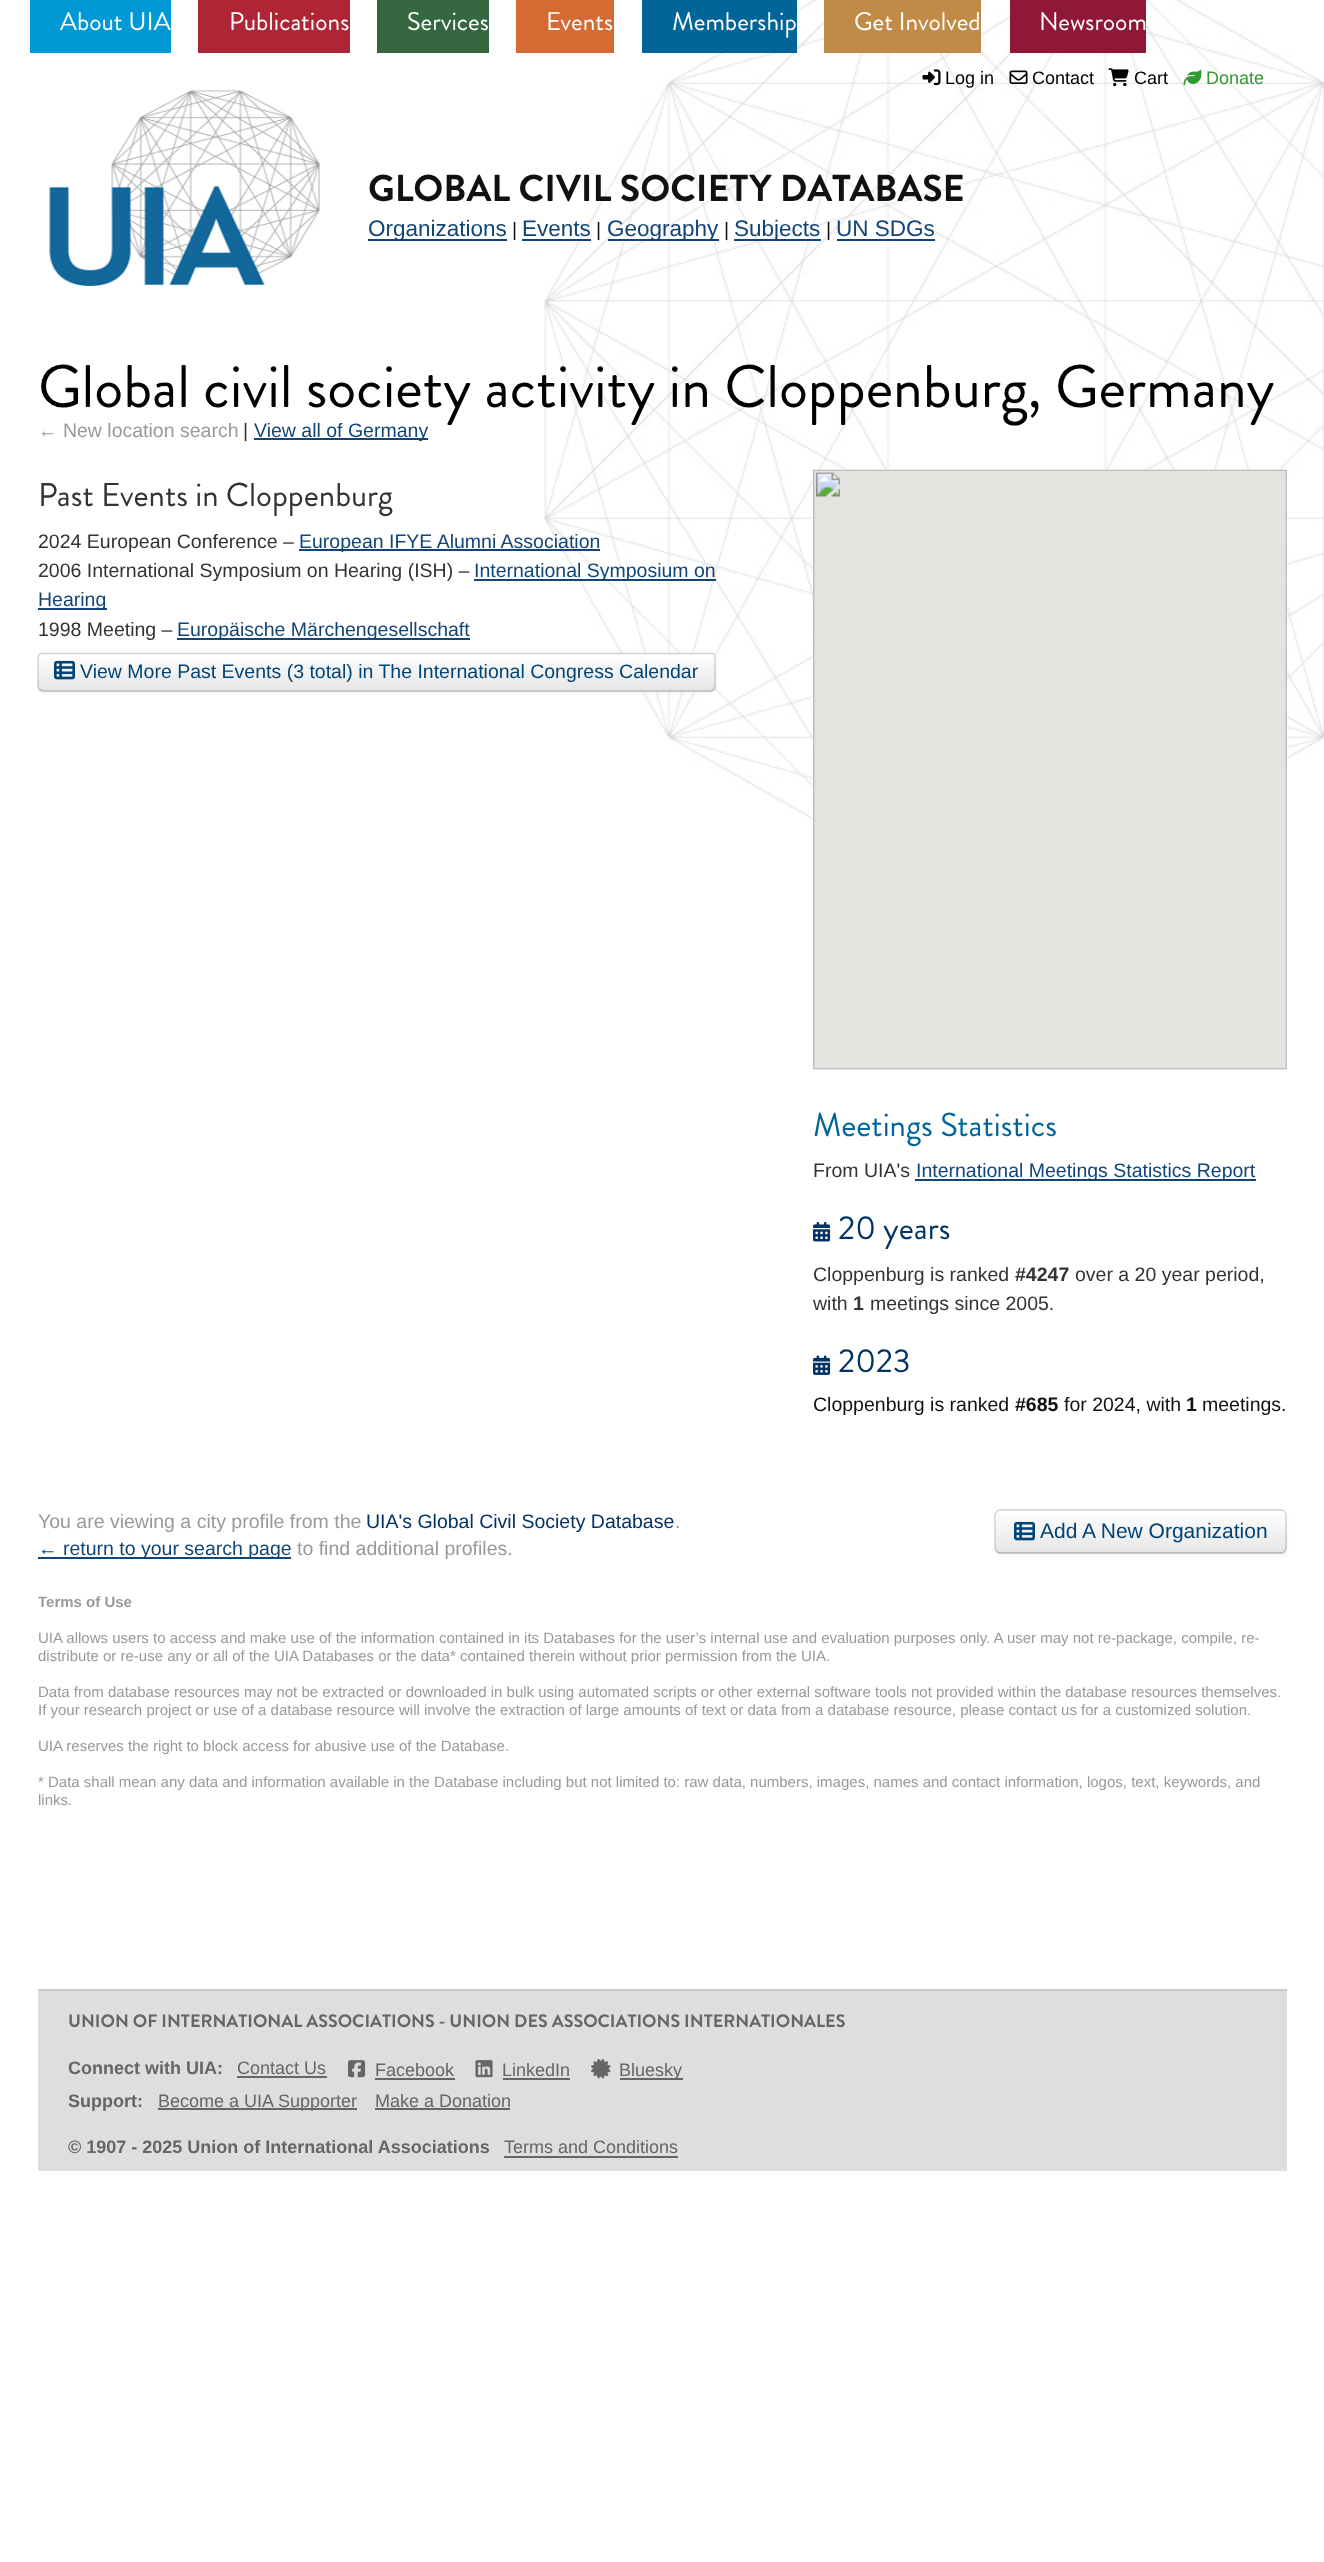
async function draw(canvas) {
  canvas.width = 1324;
  canvas.height = 2562;
  const ctx = canvas.getContext('2d');
  ctx.miterLimit = 4;
  ctx.fontKerning = 'normal';
  function label(s, x, y, font, color) {
    ctx.font = font;
    ctx.fillStyle = color;
    ctx.fillText(s, x, y);
  }
  function rect(x, y, w, h, color) {
    ctx.fillStyle = color;
    ctx.fillRect(x, y, w, h);
  }
  function roundedRect(x, y, w, h, r, color) {
    ctx.fillStyle = color;
    ctx.beginPath();
    ctx.roundRect(x, y, w, h, r);
    ctx.fill();
  }
  async function image(src, x, y, w, h) {
    const img = new Image();
    img.src = src;
    await img.decode();
    ctx.drawImage(img, x, y, w, h);
  }
  let gradient, path;

  rect(0, 0, 1324, 2562, '#fff');
  await image('assets/img1.png', 544, 0, 780, 863);
  rect(30, 0, 141, 53, '#0199d5');
  label('About UIA', 60, 30, '25.5px Brandon Grotesque', '#fff');
  rect(198, 0, 152, 53, '#b02536');
  label('Publications', 229, 30, '25.5px Brandon Grotesque', '#fff');
  rect(377, 0, 112, 53, '#356840');
  label('Services', 407, 30, '25.5px Brandon Grotesque', '#fff');
  rect(516, 0, 98, 53, '#d56b32');
  label('Events', 546, 30, '25.5px Brandon Grotesque', '#fff');
  rect(642, 0, 155, 53, '#069');
  label('Membership', 672, 30, '25.5px Brandon Grotesque', '#fff');
  rect(824, 0, 157, 53, '#c08a47');
  label('Get Involved', 854, 30, '25.5px Brandon Grotesque', '#fff');
  rect(1010, 0, 136, 53, '#8f1838');
  label('Newsroom', 1039, 30, '25.5px Brandon Grotesque', '#fff');
  await image('assets/img2.png', 922, 69, 19, 17);
  label('Log in', 945, 84, '18px Liberation Sans', '#000');
  await image('assets/img3.png', 1009, 70, 19, 14);
  label('Contact', 1032, 84, '18px Liberation Sans', '#000');
  await image('assets/img4.png', 1108, 68, 21, 19);
  label('Cart', 1134, 84, '18px Liberation Sans', '#000');
  await image('assets/img5.png', 1183, 69, 19, 17);
  label('Donate', 1206, 84, '18px Liberation Sans', '#393');
  await image('assets/img6.png', 49, 90, 271, 196);
  label('GLOBAL CIVIL SOCIETY DATABASE', 368, 201, 'bold 37.5px Brandon Grotesque', '#111');
  rect(368, 239, 139, 2, '#147');
  label('Organizations', 368, 236, '22.5px Liberation Sans', '#147');
  label('|', 512, 236, '19.5px Liberation Sans', '#111');
  label('Events', 522, 236, '22.5px Liberation Sans', '#147');
  rect(522, 239, 69, 2, '#147');
  label('|', 596, 236, '19.5px Liberation Sans', '#111');
  rect(608, 239, 111, 2, '#147');
  label('Geography', 607, 236, '22.5px Liberation Sans', '#147');
  label('|', 724, 236, '19.5px Liberation Sans', '#111');
  rect(734, 239, 87, 2, '#147');
  label('Subjects', 734, 236, '22.5px Liberation Sans', '#147');
  label('|', 826, 236, '19.5px Liberation Sans', '#111');
  label('UN SDGs', 836, 236, '22.5px Liberation Sans', '#147');
  rect(837, 239, 98, 2, '#147');
  label('Global civil society activity in Cloppenburg, Germany', 38, 407, '60px Brandon Grotesque', '#000');
  label('← New location search', 38, 437, '19.5px Liberation Sans', '#999');
  label('|', 243, 437, '19.5px Liberation Sans', '#333');
  rect(254, 438, 174, 2, '#147');
  label('View all of Germany', 254, 437, '19.5px Liberation Sans', '#147');
  label('Past Events in Cloppenburg', 38, 506, '33px Brandon Grotesque', '#333');
  label('2024 European Conference –', 38, 548, '19.5px Liberation Sans', '#333');
  rect(299, 549, 301, 2, '#147');
  label('European IFYE Alumni Association', 299, 548, '19.5px Liberation Sans', '#147');
  label('2006 International Symposium on Hearing (ISH) –', 38, 577, '19.5px Liberation Sans', '#333');
  rect(474, 579, 242, 2, '#147');
  label('International Symposium on', 474, 577, '19.5px Liberation Sans', '#147');
  rect(38, 608, 69, 2, '#147');
  label('Hearing', 38, 606, '19.5px Liberation Sans', '#147');
  label('1998 Meeting –', 38, 636, '19.5px Liberation Sans', '#333');
  rect(177, 638, 293, 2, '#147');
  label('Europäische Märchengesellschaft', 177, 636, '19.5px Liberation Sans', '#147');
  ctx.fillStyle = '#0000000d';
  ctx.filter = 'blur(1.5px)';
  ctx.beginPath();
  ctx.roundRect(38, 654, 678, 39, 5);
  ctx.fill();
  ctx.filter = 'none';
  roundedRect(38, 653, 678, 39, 5, '#f5f5f5');
  ctx.save();
  ctx.beginPath();
  ctx.roundRect(38, 653, 678, 39, 5);
  ctx.clip();
  gradient = ctx.createLinearGradient(377, 654, 377, 690);
  gradient.addColorStop(0, '#fff');
  gradient.addColorStop(1, '#e6e6e6');
  ctx.fillStyle = gradient;
  ctx.fillRect(38, 654, 678, 36);
  ctx.restore();
  path = new Path2D('M713.5 689.5L711 691H42L39.5 689.5');
  ctx.strokeStyle = '#00000040';
  ctx.lineWidth = 1.5;
  ctx.stroke(path);
  path = new Path2D('M39.5 689.5C37.5 688 38 684 38 682V662C38 659.5 37.5 655 40.5 653.5H712.5C715.5 655 715 659.5 715 662V682C715 684 715.5 688 713.5 689.5');
  ctx.strokeStyle = '#00000026';
  ctx.stroke(path);
  await image('assets/img7.png', 54, 660, 21, 20);
  label('View More Past Events (3 total) in The International Congress Calendar', 80, 678, '19.5px Liberation Sans', '#047');
  await image('assets/img8.png', 813, 469, 474, 601);
  label('Meetings Statistics', 813, 1136, '33px Brandon Grotesque', '#069');
  label('From UIA\'s', 813, 1177, '19.5px Liberation Sans', '#333');
  rect(915, 1179, 341, 2, '#147');
  label('International Meetings Statistics Report', 916, 1177, '19.5px Liberation Sans', '#147');
  await image('assets/img9.png', 813, 1221, 18, 21);
  label('20 years', 838, 1239, '33px Brandon Grotesque', '#036');
  label('Cloppenburg is ranked', 813, 1281, '19.5px Liberation Sans', '#333');
  label('#4247', 1015, 1281, 'bold 19.5px Liberation Sans', '#333');
  label('over a 20 year period,', 1075, 1281, '19.5px Liberation Sans', '#333');
  label('with', 813, 1310, '19.5px Liberation Sans', '#333');
  label('1', 853, 1310, 'bold 19.5px Liberation Sans', '#333');
  label('meetings since 2005.', 870, 1310, '19.5px Liberation Sans', '#333');
  await image('assets/img10.png', 813, 1355, 18, 20);
  label('2023', 838, 1372, '33px Brandon Grotesque', '#036');
  label('Cloppenburg is ranked', 813, 1411, '19.5px Liberation Sans', '#111');
  label('#685', 1015, 1411, 'bold 19.5px Liberation Sans', '#111');
  label('for 2024, with', 1064, 1411, '19.5px Liberation Sans', '#111');
  label('1', 1186, 1411, 'bold 19.5px Liberation Sans', '#111');
  label('meetings.', 1202, 1411, '19.5px Liberation Sans', '#111');
  label('You are viewing a city profile from the', 38, 1528, '19.5px Liberation Sans', '#999');
  label('UIA\'s Global Civil Society Database', 366, 1528, '19.5px Liberation Sans', '#036');
  label('.', 675, 1528, '19.5px Liberation Sans', '#999');
  ctx.fillStyle = '#0000000d';
  ctx.filter = 'blur(1.5px)';
  ctx.beginPath();
  ctx.roundRect(995, 1511, 292, 45, 6);
  ctx.fill();
  ctx.filter = 'none';
  roundedRect(995, 1509, 292, 45, 6, '#f5f5f5');
  ctx.save();
  ctx.beginPath();
  ctx.roundRect(995, 1509, 292, 45, 6);
  ctx.clip();
  gradient = ctx.createLinearGradient(1141, 1511, 1141, 1553);
  gradient.addColorStop(0, '#fff');
  gradient.addColorStop(1, '#e6e6e6');
  ctx.fillStyle = gradient;
  ctx.fillRect(995, 1511, 292, 42);
  ctx.restore();
  path = new Path2D('M1284.5 1551.5C1283.5 1552.5 1282.5 1553 1281 1553H1000.5C999 1553 998 1552.5 997 1551.5');
  ctx.strokeStyle = '#00000040';
  ctx.stroke(path);
  path = new Path2D('M997 1551.5C996 1550.5 995 1549.5 995 1548V1515C995 1513.5 996 1512.5 997 1511.5C998 1510.5 999 1510 1000.5 1510H1281C1282.5 1510 1283.5 1510.5 1284.5 1511.5C1285.5 1512.5 1286 1513.5 1286 1515V1548C1286 1549.5 1285.5 1550.5 1284.5 1551.5');
  ctx.strokeStyle = '#00000026';
  ctx.stroke(path);
  await image('assets/img11.png', 1014, 1521, 21, 20);
  label('Add A New Organization', 1040, 1538, '21px Liberation Sans', '#047');
  rect(38, 1557, 253, 2, '#147');
  label('← return to your search page', 38, 1555, '19.5px Liberation Sans', '#147');
  label('to find additional profiles.', 297, 1555, '19.5px Liberation Sans', '#999');
  label('Terms of Use', 38, 1607, 'bold 15px Liberation Sans', '#999');
  label('UIA allows users to access and make use of the information contained in its Databases for the user’s internal use and evaluation purposes only. A user may not re-package, compile, re-', 38, 1643, '15px Liberation Sans', '#999');
  label('distribute or re-use any or all of the UIA Databases or the data* contained therein without prior permission from the UIA.', 38, 1661, '15px Liberation Sans', '#999');
  label('Data from database resources may not be extracted or downloaded in bulk using automated scripts or other external software tools not provided within the database resources themselves.', 38, 1697, '15px Liberation Sans', '#999');
  label('If your research project or use of a database resource will involve the extraction of large amounts of text or data from a database resource, please contact us for a customized solution.', 38, 1715, '15px Liberation Sans', '#999');
  label('UIA reserves the right to block access for abusive use of the Database.', 38, 1751, '15px Liberation Sans', '#999');
  label('* Data shall mean any data and information available in the Database including but not limited to: raw data, numbers, images, names and contact information, logos, text, keywords, and', 38, 1787, '15px Liberation Sans', '#999');
  label('links.', 38, 1805, '15px Liberation Sans', '#999');
  rect(38, 1991, 1249, 180, '#dedede');
  rect(38, 1989, 1249, 2, '#ccc');
  label('UNION OF INTERNATIONAL ASSOCIATIONS - UNION DES ASSOCIATIONS INTERNATIONALES', 68, 2027, 'bold 18px Brandon Grotesque', '#666');
  label('Connect with UIA:', 68, 2074, 'bold 18px Liberation Sans', '#666');
  label('Contact Us', 237, 2074, '18px Liberation Sans', '#666');
  rect(237, 2076, 90, 2, '#666');
  await image('assets/img12.png', 348, 2060, 18, 18);
  label('Facebook', 375, 2076, '18px Liberation Sans', '#666');
  rect(375, 2078, 80, 2, '#666');
  await image('assets/img13.png', 475, 2060, 18, 18);
  label('LinkedIn', 502, 2076, '18px Liberation Sans', '#666');
  rect(503, 2078, 67, 2, '#666');
  await image('assets/img14.png', 591, 2059, 20, 20);
  rect(620, 2078, 63, 2, '#666');
  label('Bluesky', 619, 2076, '18px Liberation Sans', '#666');
  label('Support:', 68, 2107, 'bold 18px Liberation Sans', '#666');
  rect(158, 2108, 199, 2, '#666');
  label('Become a UIA Supporter', 158, 2107, '18px Liberation Sans', '#666');
  label('Make a Donation', 375, 2107, '18px Liberation Sans', '#666');
  rect(375, 2108, 135, 2, '#666');
  label('© 1907 - 2025 Union of International Associations', 68, 2153, 'bold 18px Liberation Sans', '#666');
  label('Terms and Conditions', 504, 2153, '18px Liberation Sans', '#666');
  rect(504, 2156, 174, 2, '#666');
}

draw(document.querySelector('canvas'));
